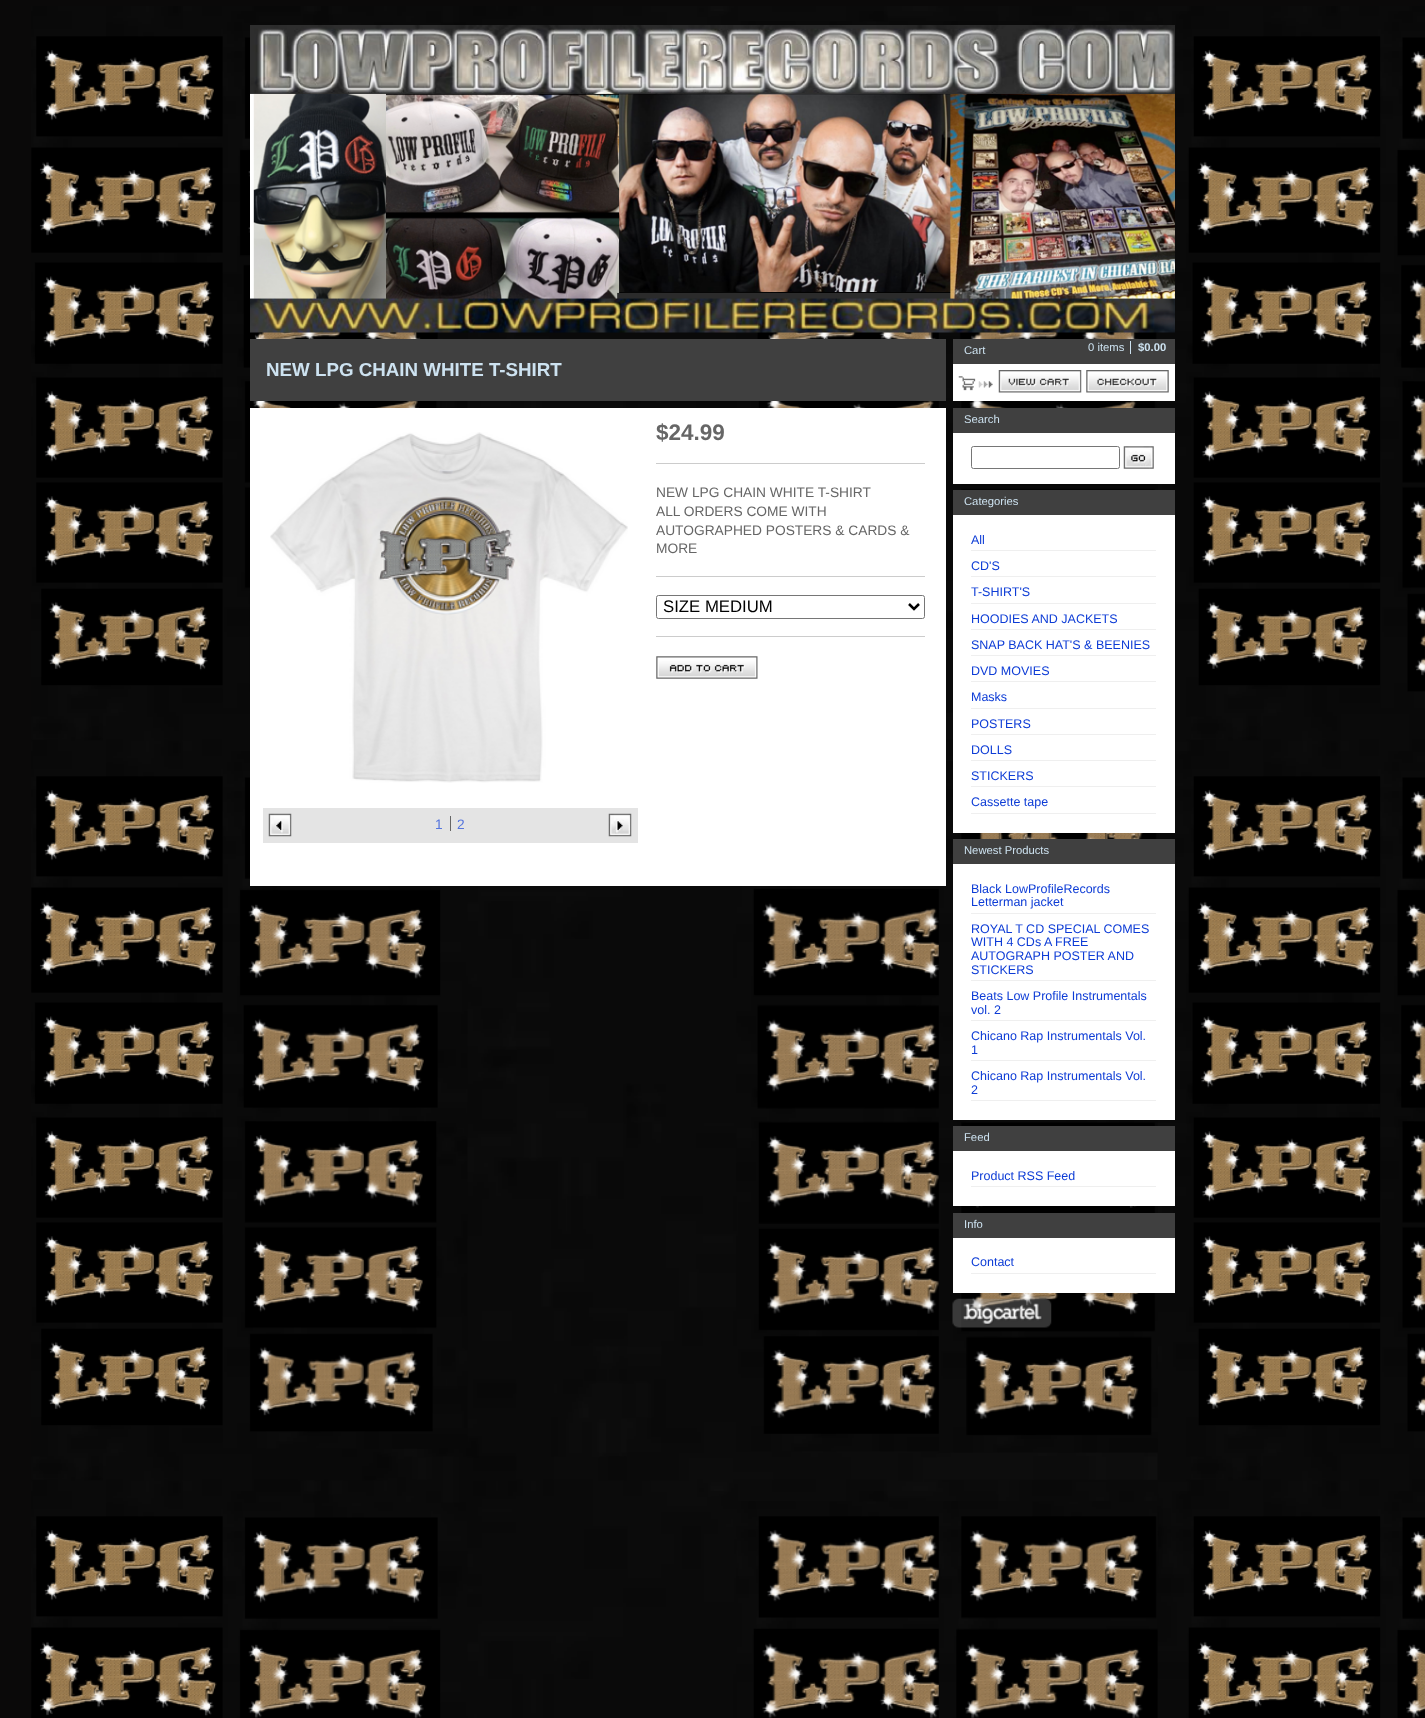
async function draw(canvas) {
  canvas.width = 1425;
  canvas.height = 1718;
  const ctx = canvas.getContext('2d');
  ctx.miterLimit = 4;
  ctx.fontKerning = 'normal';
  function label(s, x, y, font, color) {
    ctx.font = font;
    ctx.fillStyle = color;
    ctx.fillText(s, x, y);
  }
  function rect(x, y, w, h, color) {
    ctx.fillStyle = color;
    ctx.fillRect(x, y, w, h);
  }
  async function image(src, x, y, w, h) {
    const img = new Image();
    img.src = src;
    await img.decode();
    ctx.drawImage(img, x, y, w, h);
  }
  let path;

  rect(0, 0, 1425, 1718, '#0a0909');
  await image('assets/img1.png', 31, 6, 1394, 1712);
  await image('assets/img2.png', 250, 25, 925, 308);
  rect(250, 339, 696, 62, '#404040');
  label('NEW LPG CHAIN WHITE T-SHIRT', 266, 376, 'bold 18.75px Liberation Sans', '#cde2f0');
  rect(250, 408, 696, 478, '#fff');
  rect(656, 463, 269, 1, '#ccc');
  label('$24.99', 656, 440, 'bold 22.5px Liberation Sans', '#666');
  rect(656, 576, 269, 1, '#ccc');
  label('NEW LPG CHAIN WHITE T-SHIRT', 656, 497, '13.75px Liberation Sans', '#666');
  label('ALL ORDERS COME WITH', 656, 516, '13.75px Liberation Sans', '#666');
  label('AUTOGRAPHED POSTERS & CARDS &', 656, 535, '13.75px Liberation Sans', '#666');
  label('MORE', 656, 553, '13.75px Liberation Sans', '#666');
  rect(656, 636, 269, 1, '#ccc');
  ctx.beginPath();
  ctx.roundRect(656.5, 595.5, 268, 23, 2);
  ctx.strokeStyle = '#767676';
  ctx.stroke();
  path = new Path2D('M909 604L914 609L919 604');
  ctx.strokeStyle = '#000';
  ctx.lineWidth = 2.5;
  ctx.stroke(path);
  label('SIZE MEDIUM', 663, 612, '16.75px Liberation Sans', '#000');
  await image('assets/img3.png', 656, 656, 102, 23);
  await image('assets/img4.png', 270, 432, 358, 351);
  rect(263, 808, 375, 35, '#e4e4e4');
  await image('assets/img5.png', 268, 813, 24, 24);
  label('1', 435, 829, '13.75px Liberation Sans', '#5575dd');
  label('2', 457, 829, '13.75px Liberation Sans', '#5575dd');
  rect(450, 816, 1, 15, '#666');
  await image('assets/img6.png', 608, 813, 24, 24);
  rect(953, 364, 222, 37, '#fff');
  await image('assets/img7.png', 958, 376, 35, 15);
  rect(953, 339, 222, 25, '#404040');
  label('Cart', 964, 354, '11.25px Liberation Sans', '#cde2f0');
  label('0 items', 1088, 351, '11.25px Liberation Sans', '#cde2f0');
  rect(1130, 341, 1, 13, '#cde2f0');
  label('$0.00', 1138, 351, 'bold 11.25px Liberation Sans', '#cde2f0');
  await image('assets/img8.png', 998, 370, 84, 23);
  await image('assets/img9.png', 1086, 370, 83, 23);
  rect(953, 433, 222, 51, '#fff');
  rect(953, 408, 222, 25, '#404040');
  label('Search', 964, 423, '11.25px Liberation Sans', '#cde2f0');
  ctx.beginPath();
  ctx.roundRect(971.5, 446.5, 148, 22, 2);
  ctx.strokeStyle = '#767676';
  ctx.lineWidth = 1;
  ctx.stroke();
  await image('assets/img10.png', 1123, 446, 31, 23);
  rect(953, 515, 222, 318, '#fff');
  rect(953, 490, 222, 25, '#404040');
  label('Categories', 964, 505, '11.25px Liberation Sans', '#cde2f0');
  rect(971, 550, 185, 1, '#efefef');
  label('All', 971, 544, '12.5px Liberation Sans', '#0d3cd6');
  rect(971, 576, 185, 1, '#efefef');
  label('CD\'S', 971, 570, '12.5px Liberation Sans', '#0d3cd6');
  rect(971, 603, 185, 1, '#efefef');
  label('T-SHIRT\'S', 971, 596, '12.5px Liberation Sans', '#0d3cd6');
  rect(971, 629, 185, 1, '#efefef');
  label('HOODIES AND JACKETS', 971, 623, '12.5px Liberation Sans', '#0d3cd6');
  rect(971, 655, 185, 1, '#efefef');
  label('SNAP BACK HAT\'S & BEENIES', 971, 649, '12.5px Liberation Sans', '#0d3cd6');
  rect(971, 681, 185, 1, '#efefef');
  label('DVD MOVIES', 971, 675, '12.5px Liberation Sans', '#0d3cd6');
  rect(971, 708, 185, 1, '#efefef');
  label('Masks', 971, 701, '12.5px Liberation Sans', '#0d3cd6');
  rect(971, 734, 185, 1, '#efefef');
  label('POSTERS', 971, 728, '12.5px Liberation Sans', '#0d3cd6');
  rect(971, 760, 185, 1, '#efefef');
  label('DOLLS', 971, 754, '12.5px Liberation Sans', '#0d3cd6');
  rect(971, 786, 185, 1, '#efefef');
  label('STICKERS', 971, 780, '12.5px Liberation Sans', '#0d3cd6');
  rect(971, 813, 185, 1, '#efefef');
  label('Cassette tape', 971, 806, '12.5px Liberation Sans', '#0d3cd6');
  rect(953, 864, 222, 256, '#fff');
  rect(953, 839, 222, 25, '#404040');
  label('Newest Products', 964, 854, '11.25px Liberation Sans', '#cde2f0');
  rect(971, 913, 185, 1, '#efefef');
  label('Black LowProfileRecords', 971, 893, '12.5px Liberation Sans', '#0d3cd6');
  label('Letterman jacket', 971, 906, '12.5px Liberation Sans', '#0d3cd6');
  rect(971, 980, 185, 1, '#efefef');
  label('ROYAL T CD SPECIAL COMES', 971, 933, '12.5px Liberation Sans', '#0d3cd6');
  label('WITH 4 CDs A FREE', 971, 946, '12.5px Liberation Sans', '#0d3cd6');
  label('AUTOGRAPH POSTER AND', 971, 960, '12.5px Liberation Sans', '#0d3cd6');
  label('STICKERS', 971, 974, '12.5px Liberation Sans', '#0d3cd6');
  rect(971, 1020, 185, 1, '#efefef');
  label('Beats Low Profile Instrumentals', 971, 1000, '12.5px Liberation Sans', '#0d3cd6');
  label('vol. 2', 971, 1014, '12.5px Liberation Sans', '#0d3cd6');
  rect(971, 1060, 185, 1, '#efefef');
  label('Chicano Rap Instrumentals Vol.', 971, 1040, '12.5px Liberation Sans', '#0d3cd6');
  label('1', 971, 1054, '12.5px Liberation Sans', '#0d3cd6');
  rect(971, 1100, 185, 1, '#efefef');
  label('Chicano Rap Instrumentals Vol.', 971, 1080, '12.5px Liberation Sans', '#0d3cd6');
  label('2', 971, 1094, '12.5px Liberation Sans', '#0d3cd6');
  rect(953, 1151, 222, 55, '#fff');
  rect(953, 1126, 222, 25, '#404040');
  label('Feed', 964, 1141, '11.25px Liberation Sans', '#cde2f0');
  rect(971, 1186, 185, 1, '#efefef');
  label('Product RSS Feed', 971, 1180, '12.5px Liberation Sans', '#0d3cd6');
  rect(953, 1238, 222, 55, '#fff');
  rect(953, 1213, 222, 25, '#404040');
  label('Info', 964, 1228, '11.25px Liberation Sans', '#cde2f0');
  rect(971, 1273, 185, 1, '#efefef');
  label('Contact', 971, 1266, '12.5px Liberation Sans', '#0d3cd6');
  await image('assets/img11.png', 952, 1298, 100, 30);
}

draw(document.querySelector('canvas'));
